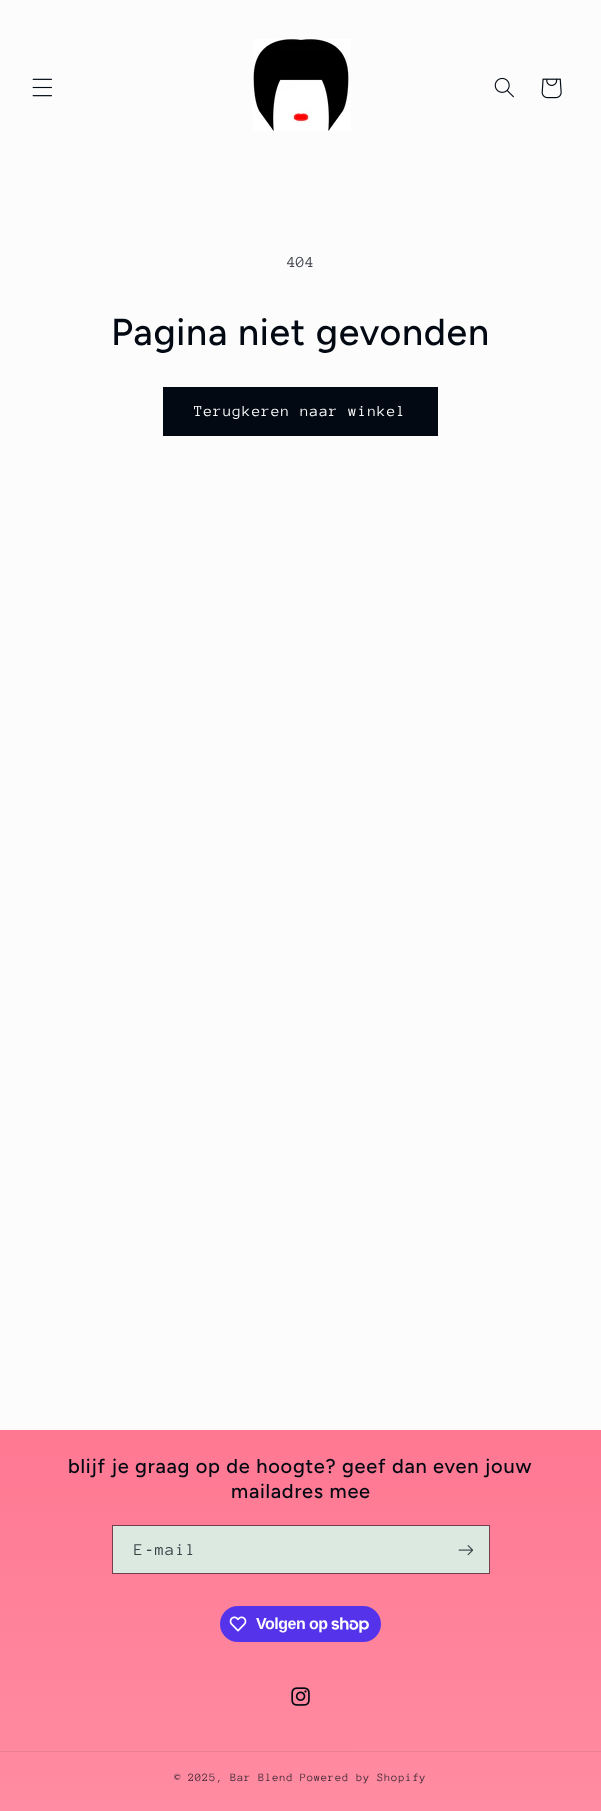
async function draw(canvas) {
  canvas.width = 601;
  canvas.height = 1811;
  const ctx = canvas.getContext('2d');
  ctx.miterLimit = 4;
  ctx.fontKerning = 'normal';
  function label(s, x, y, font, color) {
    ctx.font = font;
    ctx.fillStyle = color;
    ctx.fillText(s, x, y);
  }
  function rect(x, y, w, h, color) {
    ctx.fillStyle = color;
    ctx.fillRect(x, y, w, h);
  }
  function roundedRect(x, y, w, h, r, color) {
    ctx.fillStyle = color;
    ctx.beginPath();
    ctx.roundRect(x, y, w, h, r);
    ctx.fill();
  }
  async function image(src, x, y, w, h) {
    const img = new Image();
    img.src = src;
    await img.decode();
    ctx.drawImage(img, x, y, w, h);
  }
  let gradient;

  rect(0, 0, 601, 1811, '#fcfcfc');
  await image('assets/img1.png', 32, 78, 20, 19);
  await image('assets/img2.png', 253, 39, 98, 92);
  await image('assets/img3.png', 494, 77, 20, 21);
  await image('assets/img4.png', 541, 78, 21, 21);
  ctx.letterSpacing = '0.5px';
  label('404', 287, 267, '15.75px Anonymous Pro', '#41464d');
  ctx.letterSpacing = '0.75px';
  label('Pagina niet gevonden', 111, 345, '500 37.5px Figtree', '#020912');
  rect(163, 387, 275, 49, '#020912');
  ctx.letterSpacing = '1.05px';
  label('Terugkeren naar winkel', 194, 416, '15.75px Anonymous Pro', '#fcfcfc');
  gradient = ctx.createLinearGradient(300, 0, 301, 1811);
  gradient.addColorStop(0, '#ff9181');
  gradient.addColorStop(0.49, '#fe5b7c');
  gradient.addColorStop(1, '#ff8ca2');
  ctx.fillStyle = gradient;
  ctx.fillRect(0, 1430, 601, 381);
  ctx.letterSpacing = '0.75px';
  label('blijf je graag op de hoogte? geef dan even jouw', 68, 1473, '500 20px Figtree', '#020912');
  label('mailadres mee', 231, 1498, '500 20px Figtree', '#020912');
  rect(113, 1526, 376, 47, '#dbe9e0');
  ctx.strokeStyle = '#743e4e';
  ctx.strokeRect(112.5, 1525.5, 377, 48);
  ctx.letterSpacing = '1.05px';
  label('E', 134, 1555, '17px Anonymous Pro', '#384146');
  label('‑', 144, 1555, '17px DejaVu Sans Mono', '#384146');
  label('mail', 155, 1555, '17px Anonymous Pro', '#384146');
  await image('assets/img5.png', 458, 1545, 15, 11);
  roundedRect(220, 1606, 161, 36, 18, '#5433eb');
  await image('assets/img6.png', 229, 1616, 18, 16);
  ctx.letterSpacing = '-0.5px';
  label('Volgen op', 256, 1629, 'bold 16px Liberation Sans', '#fcfcfc');
  await image('assets/img7.png', 331, 1617, 38, 16);
  await image('assets/img8.png', 291, 1687, 19, 19);
  rect(0, 1751, 601, 1, '#eb7f95');
  ctx.letterSpacing = '0.75px';
  label('© 2025, Bar Blend', 174, 1781, '11.5px Anonymous Pro', '#412936');
  label('Powered by Shopify', 300, 1781, '11.5px Anonymous Pro', '#412936');
}

draw(document.querySelector('canvas'));
